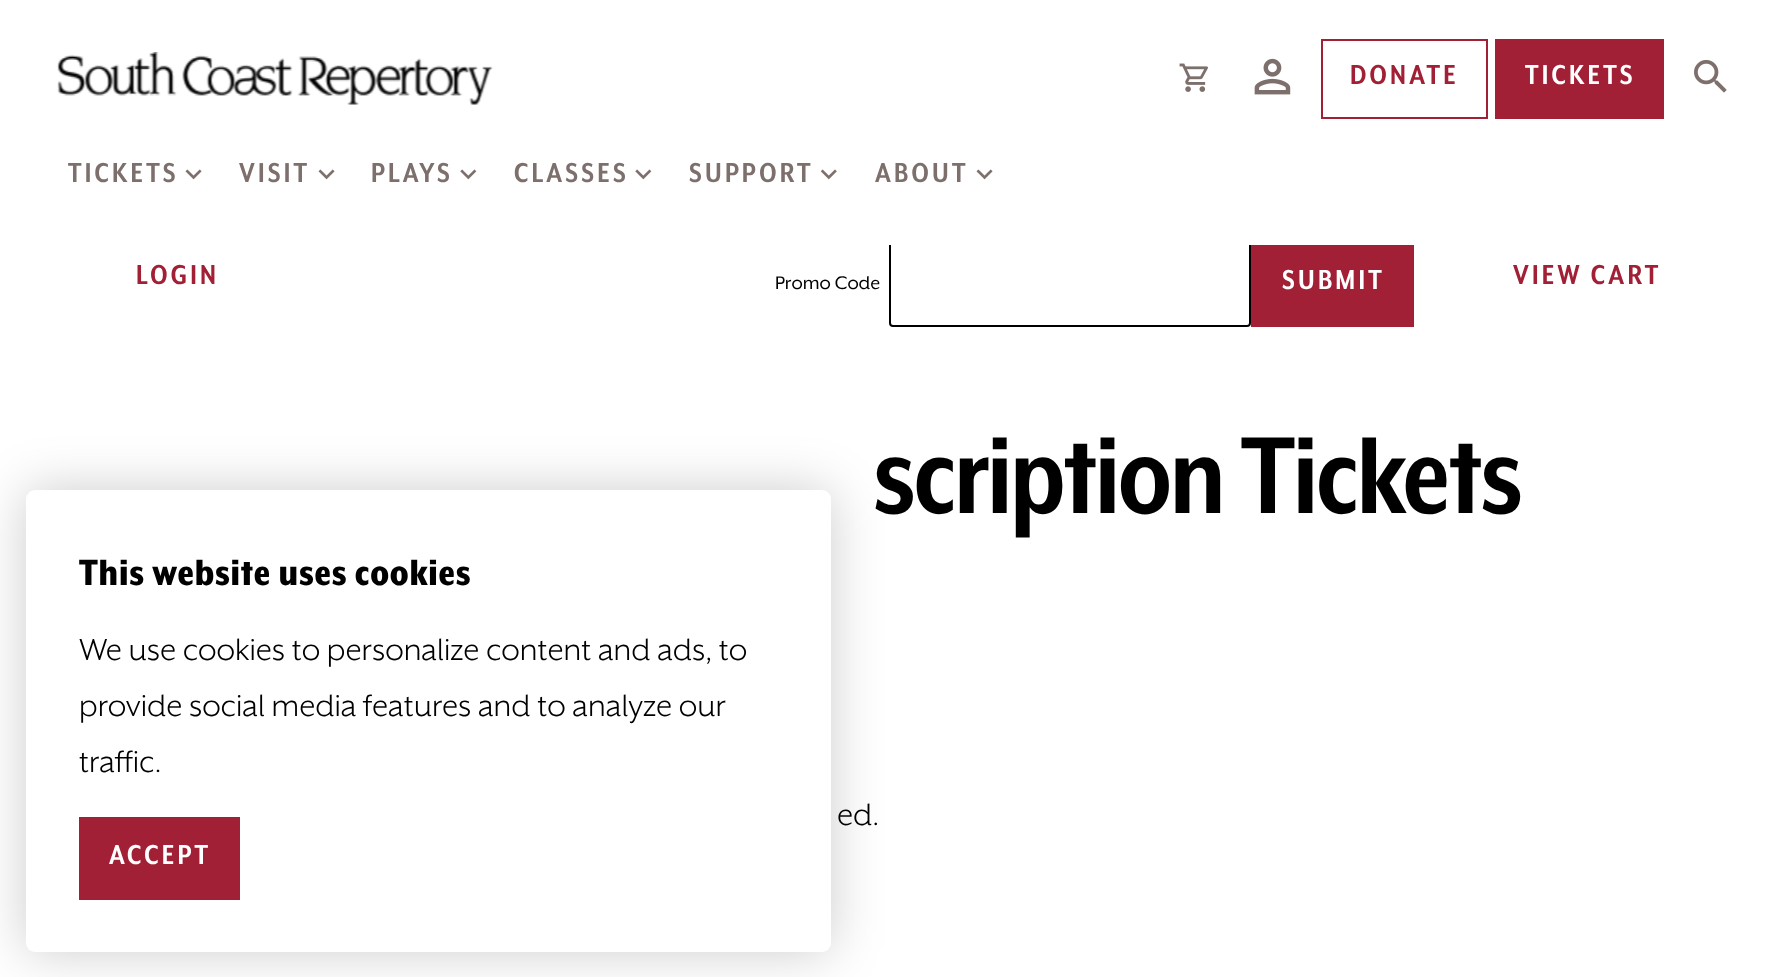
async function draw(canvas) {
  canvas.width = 1771;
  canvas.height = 977;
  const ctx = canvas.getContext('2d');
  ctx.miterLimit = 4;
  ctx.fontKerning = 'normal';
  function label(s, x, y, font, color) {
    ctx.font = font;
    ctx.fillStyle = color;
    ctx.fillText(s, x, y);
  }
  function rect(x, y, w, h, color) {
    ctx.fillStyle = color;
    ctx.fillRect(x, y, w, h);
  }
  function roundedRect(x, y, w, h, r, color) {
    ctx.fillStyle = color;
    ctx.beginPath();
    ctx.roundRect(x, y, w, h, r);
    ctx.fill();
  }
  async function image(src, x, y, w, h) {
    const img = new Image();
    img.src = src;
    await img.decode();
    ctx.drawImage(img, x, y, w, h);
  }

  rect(0, 0, 1771, 977, '#fff');
  ctx.beginPath();
  ctx.roundRect(890, 241, 360, 85, 3);
  ctx.strokeStyle = '#000';
  ctx.lineWidth = 2;
  ctx.stroke();
  rect(889, 240, 362, 5, '#fff');
  await image('assets/img1.png', 57, 52, 436, 53);
  await image('assets/img2.png', 1179, 63, 29, 29);
  await image('assets/img3.png', 1254, 58, 37, 37);
  ctx.strokeStyle = '#a22035';
  ctx.strokeRect(1322, 40, 165, 78);
  ctx.letterSpacing = '3.25px';
  label('DONATE', 1350, 84, 'bold 31.5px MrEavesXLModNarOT', '#a22035');
  rect(1495, 39, 169, 80, '#a22035');
  label('TICKETS', 1525, 84, 'bold 31.5px MrEavesXLModNarOT', '#fff');
  await image('assets/img4.png', 1694, 59, 33, 34);
  label('TICKETS', 68, 182, 'bold 31.5px MrEavesXLModNarOT', '#7d6f6c');
  await image('assets/img5.png', 185, 169, 17, 11);
  label('VISIT', 239, 182, 'bold 31.5px MrEavesXLModNarOT', '#7d6f6c');
  await image('assets/img5.png', 318, 169, 17, 11);
  label('PLAYS', 371, 182, 'bold 31.5px MrEavesXLModNarOT', '#7d6f6c');
  await image('assets/img6.png', 460, 169, 17, 11);
  label('CLASSES', 514, 182, 'bold 31.5px MrEavesXLModNarOT', '#7d6f6c');
  await image('assets/img6.png', 635, 169, 17, 11);
  label('SUPPORT', 689, 182, 'bold 31.5px MrEavesXLModNarOT', '#7d6f6c');
  await image('assets/img7.png', 820, 169, 17, 11);
  label('ABOUT', 875, 182, 'bold 31.5px MrEavesXLModNarOT', '#7d6f6c');
  await image('assets/img5.png', 976, 169, 17, 11);
  label('LOGIN', 136, 284, 'bold 31.5px MrEavesXLModNarOT', '#a22035');
  ctx.letterSpacing = '0px';
  label('Promo Code', 775, 289, '21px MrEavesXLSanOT', '#000');
  rect(1251, 245, 163, 82, '#a22035');
  ctx.letterSpacing = '3.25px';
  label('SUBMIT', 1282, 289, 'bold 31.5px MrEavesXLModNarOT', '#fff');
  label('VIEW CART', 1513, 284, 'bold 31.5px MrEavesXLModNarOT', '#a22035');
  ctx.letterSpacing = '-1.9px';
  label('scription Tickets', 873, 513, 'bold 126px MrEavesXLModNarOT', '#000');
  ctx.letterSpacing = '0px';
  label('ed.', 837, 825, '35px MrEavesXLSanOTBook', '#000');
  ctx.fillStyle = '#00000033';
  ctx.filter = 'blur(26px)';
  ctx.beginPath();
  ctx.roundRect(26, 490, 805, 462, 9);
  ctx.fill();
  ctx.filter = 'none';
  roundedRect(26, 490, 805, 462, 9, '#fff');
  ctx.letterSpacing = '0.8px';
  label('This website uses cookies', 79, 585, '900 42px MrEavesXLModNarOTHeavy', '#000');
  ctx.letterSpacing = '0px';
  label('We use cookies to personalize content and ads, to', 79, 660, '35px MrEavesXLSanOTBook', '#000');
  label('provide social media features and to analyze our', 79, 716, '35px MrEavesXLSanOTBook', '#000');
  label('traffic.', 79, 772, '35px MrEavesXLSanOTBook', '#000');
  rect(79, 817, 161, 83, '#a22035');
  ctx.letterSpacing = '3.25px';
  label('ACCEPT', 109, 864, 'bold 31.5px MrEavesXLModNarOT', '#fff');
}

draw(document.querySelector('canvas'));
